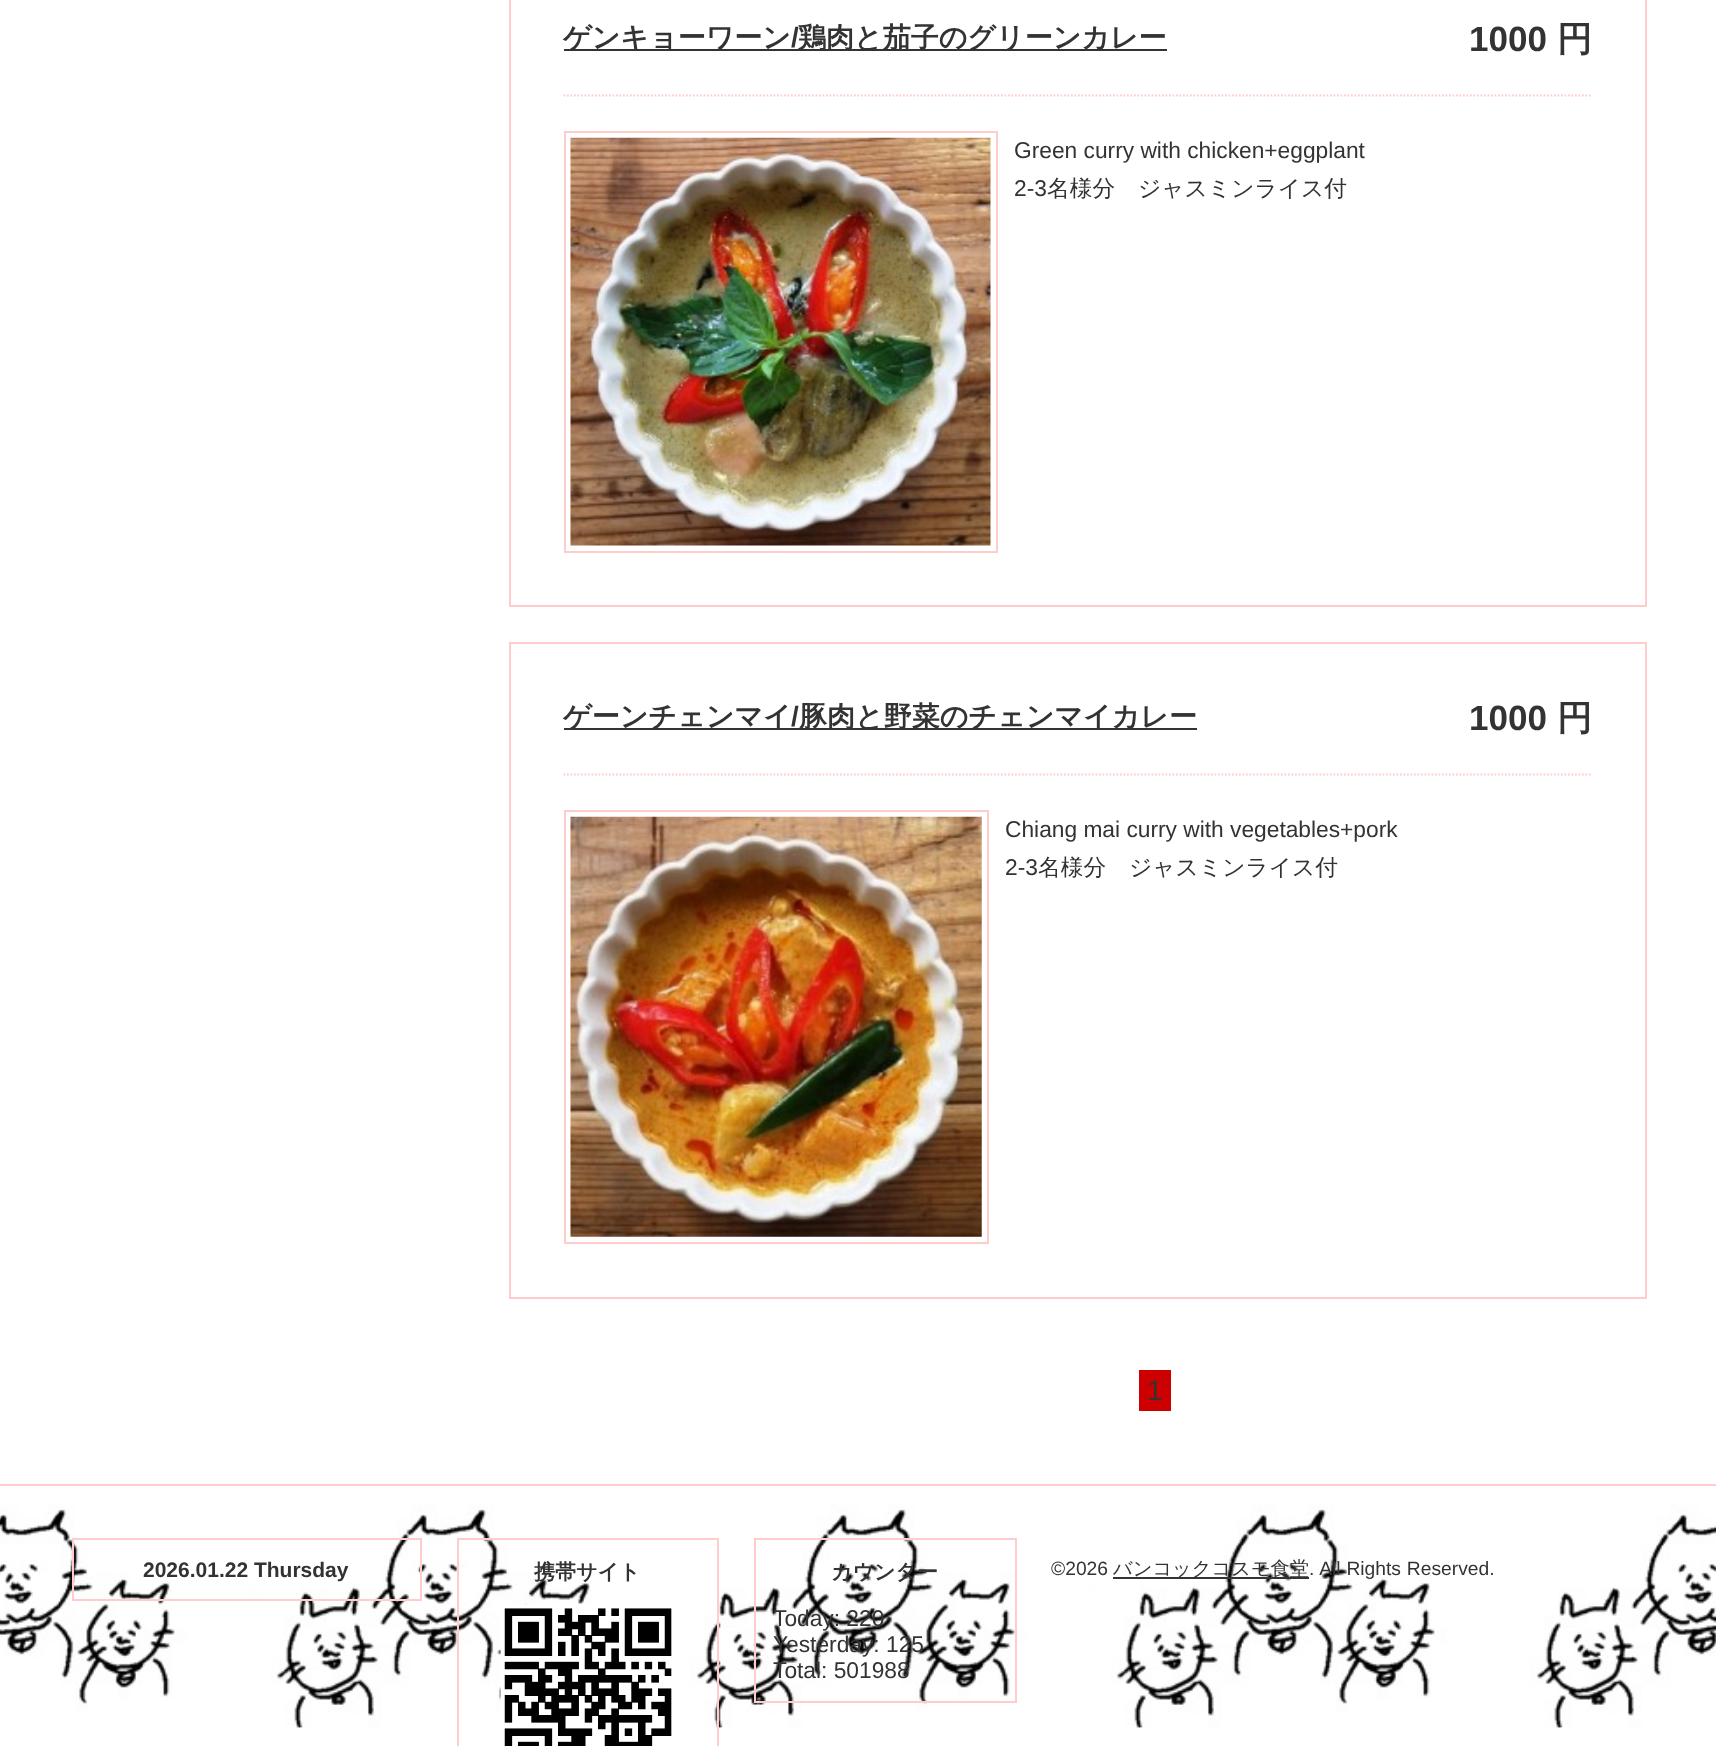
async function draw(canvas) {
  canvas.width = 1716;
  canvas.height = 1746;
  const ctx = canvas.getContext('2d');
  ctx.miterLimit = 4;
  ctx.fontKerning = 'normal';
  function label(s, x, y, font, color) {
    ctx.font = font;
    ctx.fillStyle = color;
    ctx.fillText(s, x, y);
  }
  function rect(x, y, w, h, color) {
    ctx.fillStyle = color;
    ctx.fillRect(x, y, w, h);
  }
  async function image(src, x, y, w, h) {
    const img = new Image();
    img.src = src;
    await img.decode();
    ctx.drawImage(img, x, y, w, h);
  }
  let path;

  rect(0, 0, 1716, 1746, '#fff');
  await image('assets/img1.png', 0, 1486, 1716, 260);
  rect(0, 1484, 1716, 2, '#fcc');
  ctx.strokeStyle = '#fcc';
  ctx.lineWidth = 2;
  ctx.strokeRect(510, -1, 1136, 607);
  rect(564, 49, 603, 2, '#333');
  label('ゲンキョーワーン', 563, 47, 'bold 28px WenQuanYi Zen Hei', '#333');
  label('/', 791, 47, 'bold 28px Liberation Sans', '#333');
  label('鶏肉と茄子のグリーンカレー', 798, 47, 'bold 28px WenQuanYi Zen Hei', '#333');
  label('1000', 1469, 51, 'bold 35px Liberation Sans', '#333');
  label('円', 1557, 51, 'bold 35px WenQuanYi Zen Hei', '#333');
  path = new Path2D('M563.5 95.5H1592.5');
  ctx.lineWidth = 1.8;
  ctx.setLineDash([1.75, 1.75]);
  ctx.stroke(path);
  ctx.lineWidth = 2;
  ctx.setLineDash([]);
  ctx.strokeRect(565, 132, 432, 420);
  await image('assets/img2.png', 570, 137, 421, 409);
  label('Green curry with chicken+eggplant', 1014, 158, '22.75px Liberation Sans', '#333');
  label('2-3', 1014, 196, '22.75px Liberation Sans', '#333');
  label('名様分　ジャスミンライス付', 1047, 196, '500 22.75px WenQuanYi Zen Hei', '#333');
  ctx.strokeRect(510, 643, 1136, 655);
  rect(564, 728, 633, 2, '#333');
  label('ゲーンチェンマイ', 563, 726, 'bold 28px WenQuanYi Zen Hei', '#333');
  label('/', 791, 726, 'bold 28px Liberation Sans', '#333');
  label('豚肉と野菜のチェンマイカレー', 799, 726, 'bold 28px WenQuanYi Zen Hei', '#333');
  label('1000', 1469, 730, 'bold 35px Liberation Sans', '#333');
  label('円', 1557, 730, 'bold 35px WenQuanYi Zen Hei', '#333');
  path = new Path2D('M563.5 774.5H1592.5');
  ctx.lineWidth = 1.8;
  ctx.setLineDash([1.75, 1.75]);
  ctx.stroke(path);
  ctx.lineWidth = 2;
  ctx.setLineDash([]);
  ctx.strokeRect(565, 811, 423, 432);
  await image('assets/img3.png', 570, 816, 412, 421);
  label('Chiang mai curry with vegetables+pork', 1005, 837, '22.75px Liberation Sans', '#333');
  label('2-3', 1005, 875, '22.75px Liberation Sans', '#333');
  label('名様分　ジャスミンライス付', 1038, 875, '500 22.75px WenQuanYi Zen Hei', '#333');
  rect(1139, 1370, 32, 41, '#c00');
  label('1', 1147, 1400, '28px Liberation Sans', '#333');
  ctx.strokeRect(73, 1539, 348, 61);
  label('2026.01.22 Thursday', 143, 1577, 'bold 21px Liberation Sans', '#333');
  ctx.strokeRect(458, 1539, 260, 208);
  label('携帯サイト', 534, 1579, 'bold 21px WenQuanYi Zen Hei', '#333');
  await image('assets/img4.png', 500, 1604, 172, 142);
  ctx.strokeRect(755, 1539, 261, 163);
  label('カウンター', 831, 1579, 'bold 21px WenQuanYi Zen Hei', '#333');
  label('Today: 220', 773, 1626, '22.75px Liberation Sans', '#333');
  label('Yesterday: 125', 773, 1652, '22.75px Liberation Sans', '#333');
  label('Total: 501988', 773, 1678, '22.75px Liberation Sans', '#333');
  label('©2026', 1051, 1575, '19.25px Liberation Sans', '#333');
  rect(1113, 1577, 196, 2, '#333');
  label('バンコックコスモ食堂', 1113, 1575, '500 19.25px WenQuanYi Zen Hei', '#333');
  ctx.wordSpacing = '0.5px';
  label('. All Rights Reserved.', 1309, 1575, '19.25px Liberation Sans', '#333');
}

draw(document.querySelector('canvas'));
